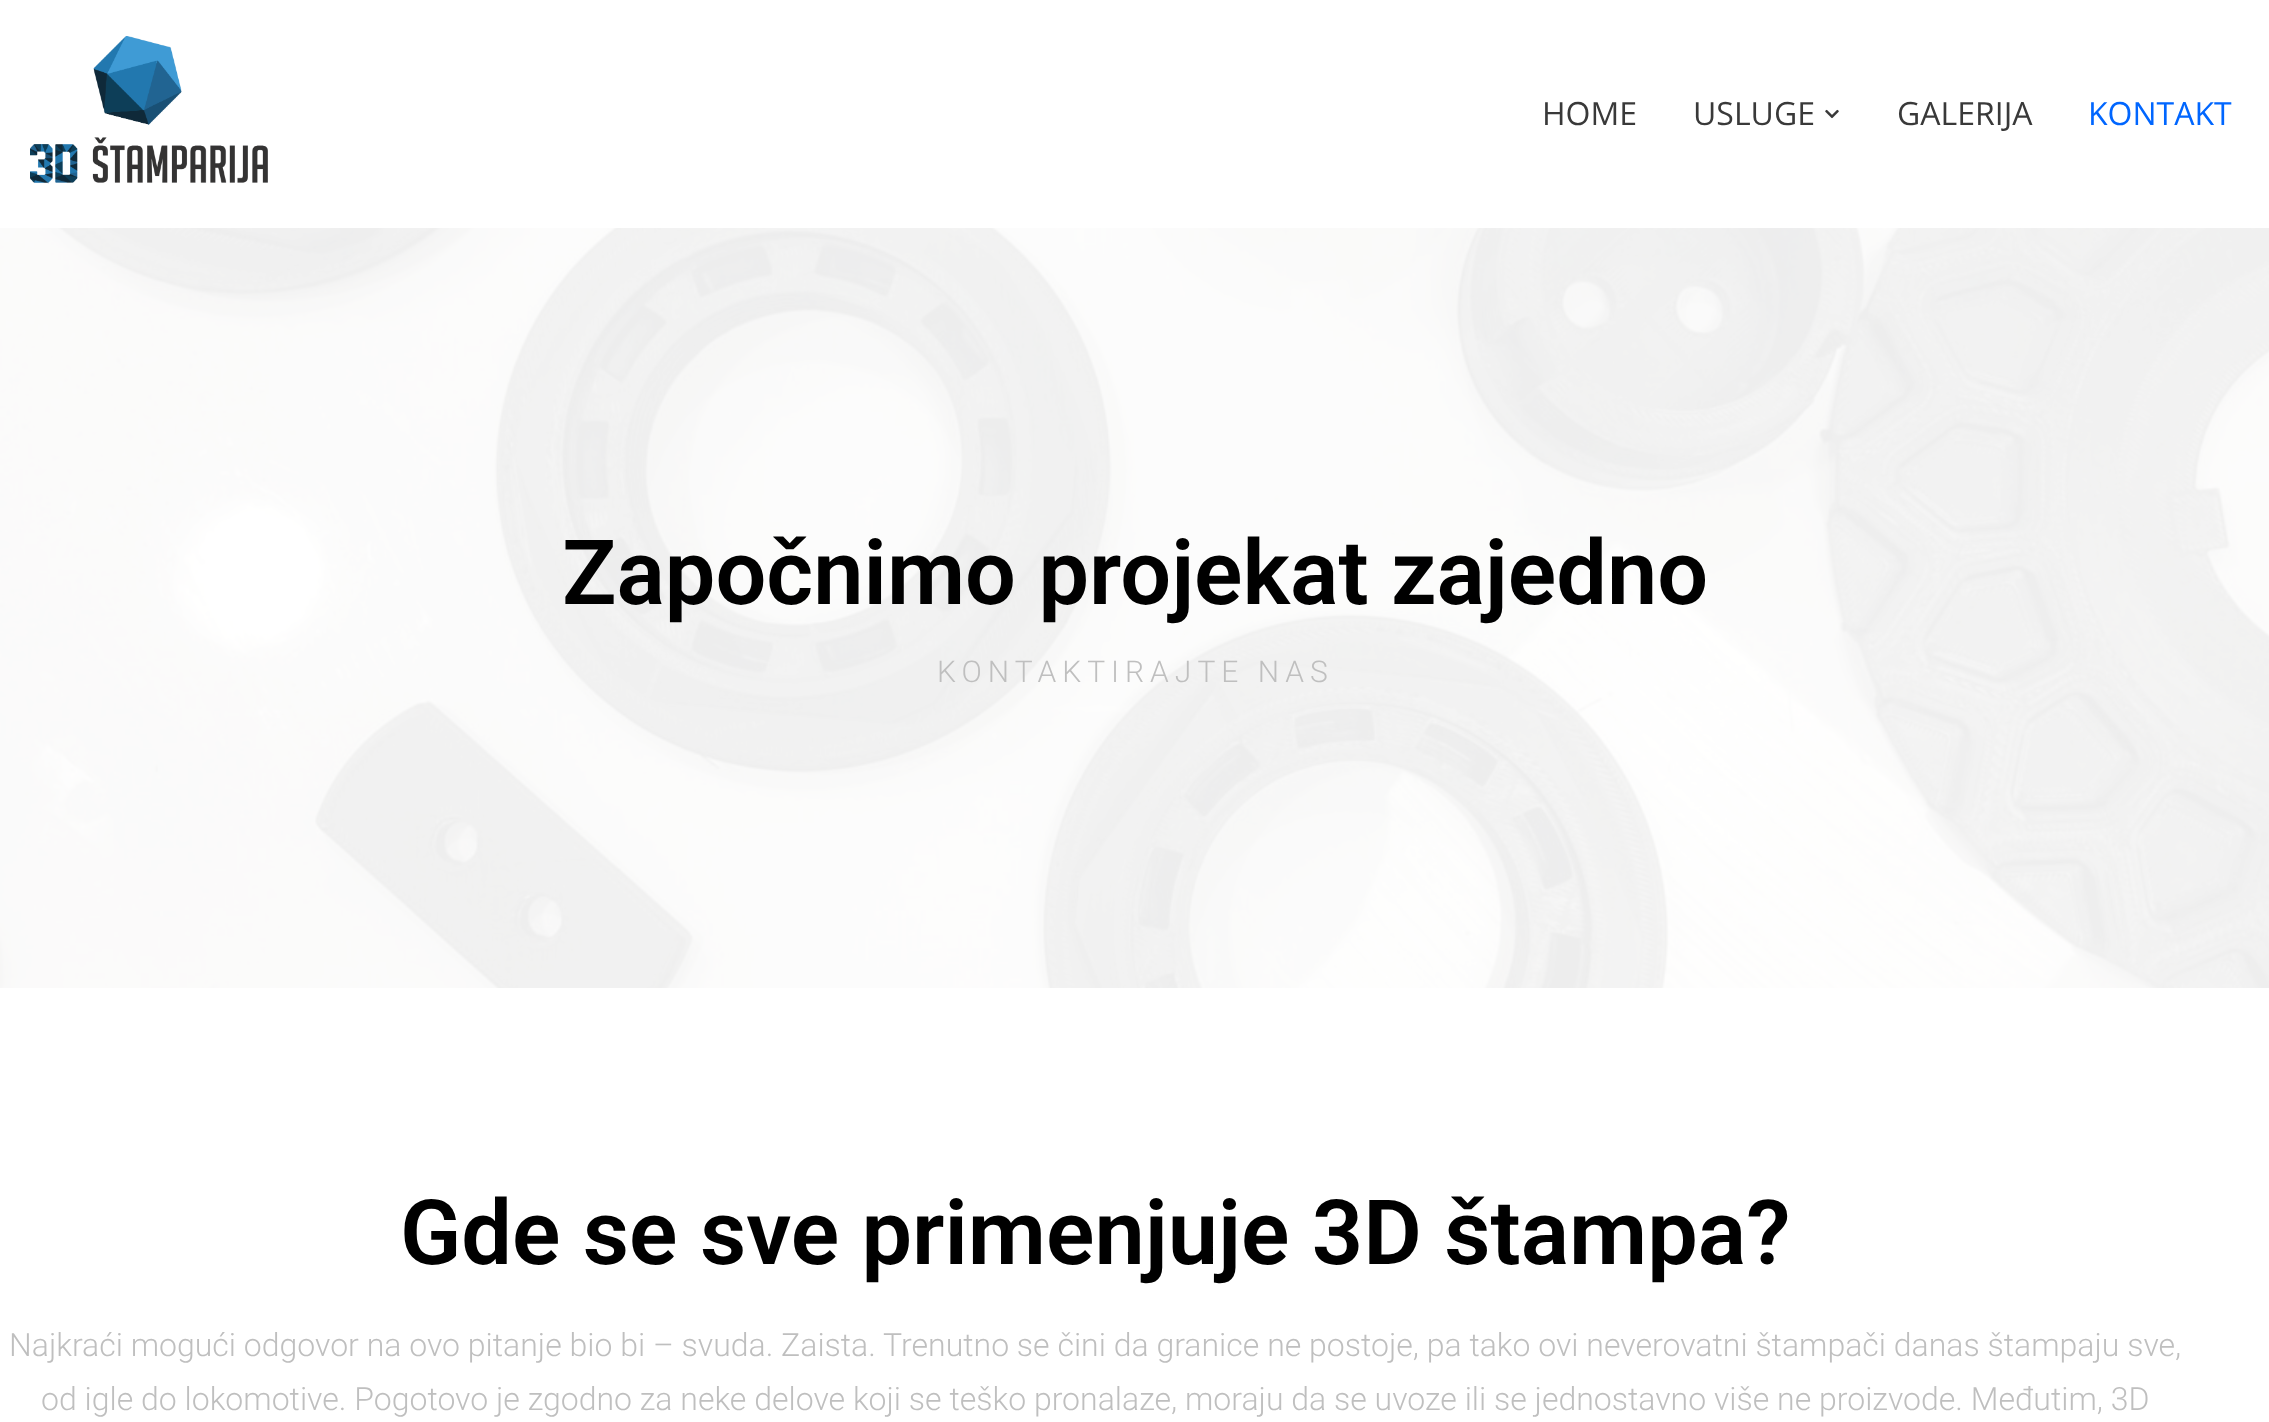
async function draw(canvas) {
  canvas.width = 2269;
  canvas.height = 1422;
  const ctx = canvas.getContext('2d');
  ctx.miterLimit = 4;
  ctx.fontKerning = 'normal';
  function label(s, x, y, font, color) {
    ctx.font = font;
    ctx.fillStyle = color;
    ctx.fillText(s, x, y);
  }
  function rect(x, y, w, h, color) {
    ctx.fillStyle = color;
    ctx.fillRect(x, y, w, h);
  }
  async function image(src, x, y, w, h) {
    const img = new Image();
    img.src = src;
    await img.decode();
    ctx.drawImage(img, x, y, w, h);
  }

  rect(0, 0, 2269, 1422, '#fff');
  await image('assets/img1.png', 30, 36, 238, 148);
  label('HOME', 1542, 125, '32px Open Sans', '#393939');
  label('USLUGE', 1693, 125, '32px Open Sans', '#393939');
  await image('assets/img2.png', 1825, 109, 14, 10);
  label('GALERIJA', 1897, 125, '32px Open Sans', '#393939');
  label('KONTAKT', 2088, 125, '32px Open Sans', '#06f');
  await image('assets/img3.png', 0, 228, 2269, 760);
  label('Započnimo projekat zajedno', 562, 604, '600 90px Roboto', '#000');
  ctx.letterSpacing = '6px';
  label('KONTAKTIRAJTE NAS', 937, 682, '300 30px Roboto', '#bfbfbf');
  ctx.letterSpacing = '0px';
  label('Gde se sve primenjuje 3D štampa?', 400, 1264, '600 90px Roboto', '#000');
  label('Najkraći mogući odgovor na ovo pitanje bio bi – svuda. Zaista. Trenutno se čini da granice ne postoje, pa tako ovi neverovatni štampači danas štampaju sve,', 9, 1356, '300 32px Roboto', '#bfbfbf');
  label('od igle do lokomotive. Pogotovo je zgodno za neke delove koji se teško pronalaze, moraju da se uvoze ili se jednostavno više ne proizvode. Međutim, 3D', 41, 1410, '300 32px Roboto', '#bfbfbf');
}

draw(document.querySelector('canvas'));
